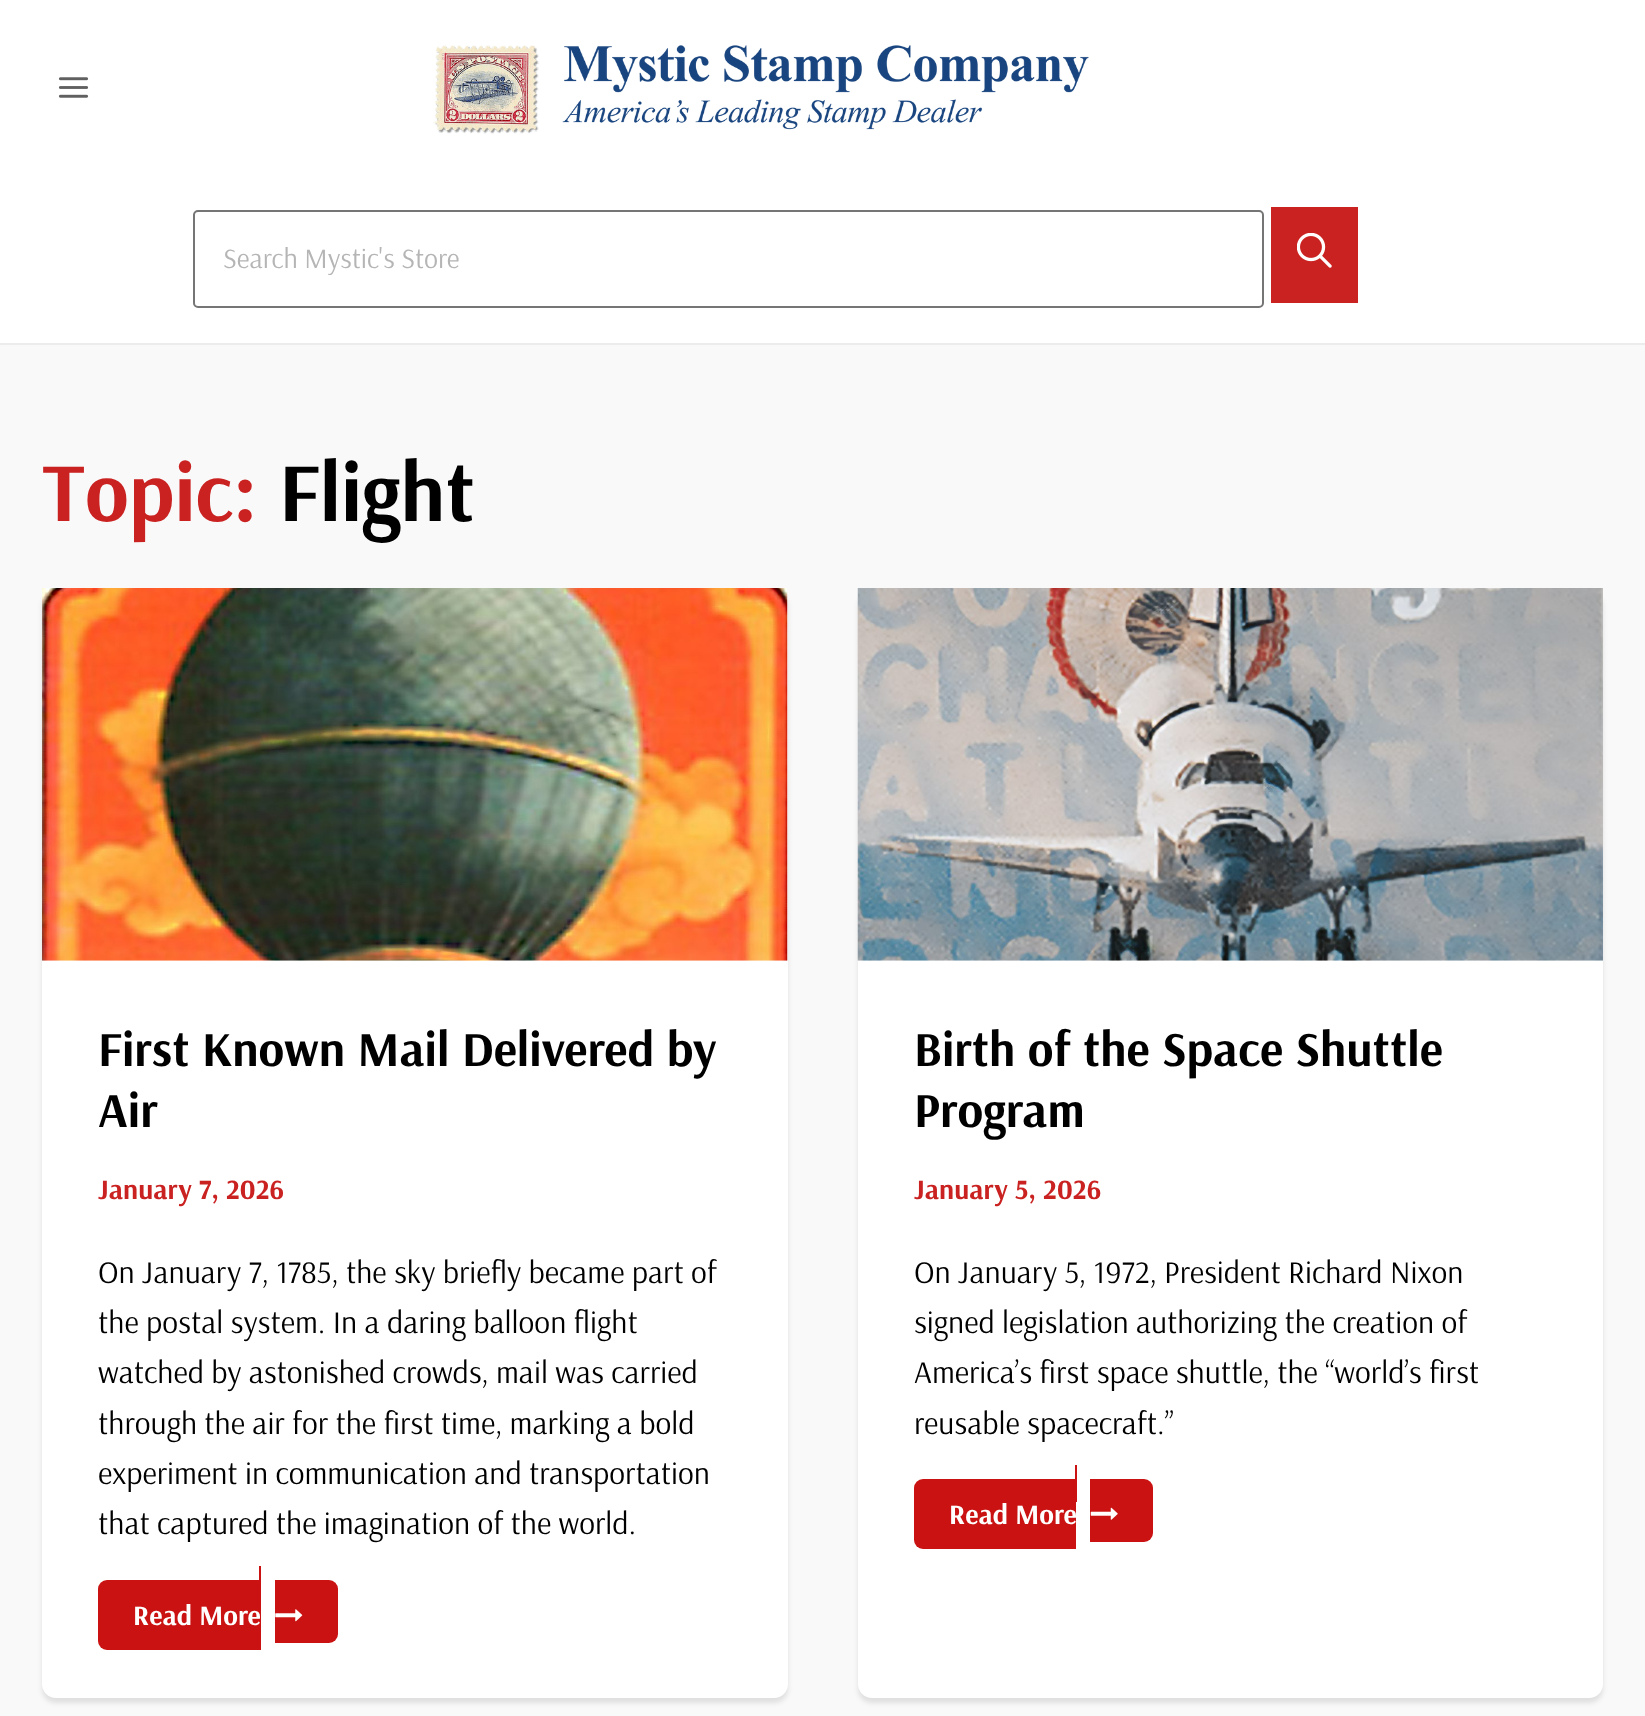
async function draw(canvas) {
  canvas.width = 1645;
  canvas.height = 1716;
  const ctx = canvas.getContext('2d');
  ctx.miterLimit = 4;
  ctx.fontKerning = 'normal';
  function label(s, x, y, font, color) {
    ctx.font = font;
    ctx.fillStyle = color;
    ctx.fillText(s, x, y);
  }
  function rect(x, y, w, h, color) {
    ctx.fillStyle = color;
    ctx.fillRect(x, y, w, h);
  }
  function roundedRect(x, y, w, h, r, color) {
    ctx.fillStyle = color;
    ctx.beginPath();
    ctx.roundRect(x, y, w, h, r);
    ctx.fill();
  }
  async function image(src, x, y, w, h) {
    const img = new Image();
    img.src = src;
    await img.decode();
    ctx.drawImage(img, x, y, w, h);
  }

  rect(0, 0, 1645, 1716, '#f9f9f9');
  rect(0, 0, 1645, 343, '#fff');
  await image('assets/img1.png', 58, 77, 31, 21);
  await image('assets/img2.png', 433, 45, 656, 89);
  rect(0, 343, 1645, 2, '#ececec');
  rect(1271, 207, 87, 96, '#ca2121');
  ctx.beginPath();
  ctx.roundRect(194, 211, 1069, 96, 4);
  ctx.strokeStyle = '#757575';
  ctx.lineWidth = 2;
  ctx.stroke();
  ctx.save();
  ctx.beginPath();
  ctx.rect(222, 240, 1012, 35);
  ctx.clip();
  label('Search Mystic\'s Store', 223, 268, '28px Arsenal', '#b5b5b5');
  ctx.restore();
  await image('assets/img3.png', 1297, 233, 35, 35);
  label('Topic:', 42, 521, 'bold 83.5px Arsenal', '#ca2121');
  label('Flight', 279, 521, 'bold 83.5px Arsenal', '#000');
  ctx.fillStyle = '#0000001a';
  ctx.filter = 'blur(2.5px)';
  ctx.beginPath();
  ctx.roundRect(42, 593, 746, 1110, 14);
  ctx.fill();
  ctx.filter = 'none';
  roundedRect(42, 588, 746, 1110, 14, '#fff');
  await image('assets/img4.png', 42, 588, 746, 373);
  label('First Known Mail Delivered by', 98, 1066, 'bold 49px Arsenal', '#000');
  label('Air', 98, 1127, 'bold 49px Arsenal', '#000');
  label('January 7, 2026', 98, 1199, 'bold 28px Arsenal', '#ca2121');
  label('On January 7, 1785, the sky briefly became part of', 98, 1283, '31.5px Arsenal', '#000');
  label('the postal system. In a daring balloon flight', 98, 1333, '31.5px Arsenal', '#000');
  label('watched by astonished crowds, mail was carried', 98, 1383, '31.5px Arsenal', '#000');
  label('through the air for the first time, marking a bold', 98, 1434, '31.5px Arsenal', '#000');
  label('experiment in communication and transportation', 98, 1484, '31.5px Arsenal', '#000');
  label('that captured the imagination of the world.', 98, 1534, '31.5px Arsenal', '#000');
  ctx.fillStyle = '#ca1212';
  ctx.beginPath();
  ctx.roundRect(98, 1580, 163, 70, [9, 0, 0, 9]);
  ctx.fill();
  rect(259, 1566, 2, 14, '#ca1212');
  ctx.beginPath();
  ctx.roundRect(275, 1580, 63, 63, [0, 9, 9, 0]);
  ctx.fill();
  label('Read More', 133, 1625, 'bold 28px Arsenal', '#fff');
  await image('assets/img5.png', 275, 1609, 28, 13);
  ctx.fillStyle = '#0000001a';
  ctx.filter = 'blur(2.5px)';
  ctx.beginPath();
  ctx.roundRect(858, 593, 745, 1110, 14);
  ctx.fill();
  ctx.filter = 'none';
  roundedRect(858, 588, 745, 1110, 14, '#fff');
  await image('assets/img6.png', 857, 588, 746, 373);
  label('Birth of the Space Shuttle', 914, 1066, 'bold 49px Arsenal', '#000');
  label('Program', 914, 1127, 'bold 49px Arsenal', '#000');
  label('January 5, 2026', 914, 1199, 'bold 28px Arsenal', '#ca2121');
  label('On January 5, 1972, President Richard Nixon', 914, 1283, '31.5px Arsenal', '#000');
  label('signed legislation authorizing the creation of', 914, 1333, '31.5px Arsenal', '#000');
  label('America’s first space shuttle, the “world’s first', 914, 1383, '31.5px Arsenal', '#000');
  label('reusable spacecraft.”', 914, 1434, '31.5px Arsenal', '#000');
  ctx.fillStyle = '#ca1212';
  ctx.beginPath();
  ctx.roundRect(914, 1479, 162, 70, [9, 0, 0, 9]);
  ctx.fill();
  rect(1075, 1465, 2, 37, '#ca1212');
  ctx.beginPath();
  ctx.roundRect(1090, 1479, 63, 63, [0, 9, 9, 0]);
  ctx.fill();
  label('Read More', 949, 1524, 'bold 28px Arsenal', '#fff');
  await image('assets/img7.png', 1090, 1507, 28, 13);
}

draw(document.querySelector('canvas'));
